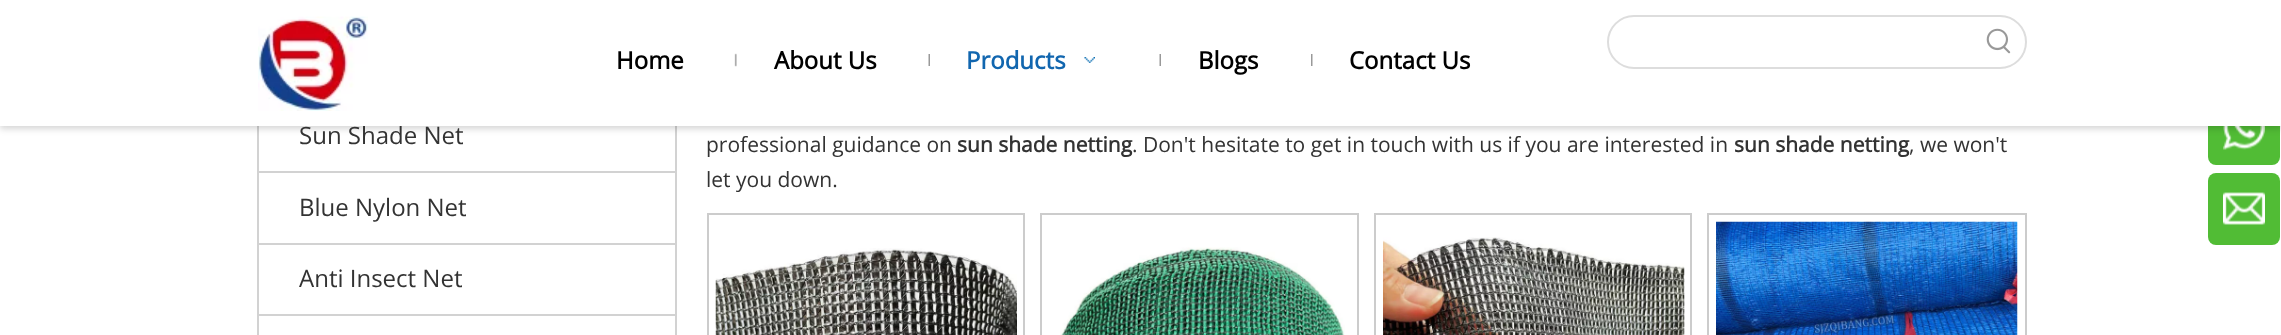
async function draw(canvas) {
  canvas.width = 2281;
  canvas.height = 335;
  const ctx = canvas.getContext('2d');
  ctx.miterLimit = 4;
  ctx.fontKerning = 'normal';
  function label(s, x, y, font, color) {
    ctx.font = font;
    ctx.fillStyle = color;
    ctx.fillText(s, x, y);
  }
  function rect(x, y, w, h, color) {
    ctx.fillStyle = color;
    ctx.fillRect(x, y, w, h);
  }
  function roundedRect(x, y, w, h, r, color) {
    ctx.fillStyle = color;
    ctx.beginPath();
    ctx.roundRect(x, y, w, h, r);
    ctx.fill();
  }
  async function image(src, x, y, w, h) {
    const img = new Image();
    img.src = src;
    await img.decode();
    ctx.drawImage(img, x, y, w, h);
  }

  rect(0, 0, 2281, 335, '#fff');
  rect(675, 126, 2, 209, '#d2d2d2');
  rect(257, 126, 2, 209, '#d2d2d2');
  roundedRect(2208, 93, 72, 72, 8, '#51bc35');
  await image('assets/img11.png', 2223, 126, 42, 24);
  ctx.fillStyle = '#00000029';
  ctx.filter = 'blur(3px)';
  ctx.beginPath();
  ctx.rect(0, 3, 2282, 126);
  ctx.fill();
  ctx.filter = 'none';
  label('Sun Shade Net', 299, 144, '24px Open Sans', '#333');
  rect(0, 0, 2281, 126, '#fff');
  await image('assets/img1.png', 258, 16, 110, 95);
  label('Home', 616, 69, 'bold 24px Open Sans', '#000');
  await image('assets/img2.png', 734, 53, 3, 14);
  label('About Us', 774, 69, 'bold 24px Open Sans', '#000');
  await image('assets/img3.png', 928, 54, 2, 12);
  label('Products', 966, 69, 'bold 24px Open Sans', '#1166af');
  await image('assets/img4.png', 1084, 57, 11, 6);
  await image('assets/img3.png', 1159, 54, 2, 12);
  label('Blogs', 1198, 69, 'bold 24px Open Sans', '#000');
  await image('assets/img5.png', 1311, 54, 2, 12);
  label('Contact Us', 1349, 69, 'bold 24px Open Sans', '#000');
  ctx.beginPath();
  ctx.roundRect(1608, 16, 418, 52, 26);
  ctx.strokeStyle = '#ddd';
  ctx.lineWidth = 2;
  ctx.stroke();
  await image('assets/img6.png', 1986, 28, 25, 26);
  rect(258, 171, 417, 2, '#d2d2d2');
  label('Blue Nylon Net', 299, 216, '24px Open Sans', '#333');
  rect(258, 243, 417, 2, '#d2d2d2');
  label('Anti Insect Net', 299, 287, '24px Open Sans', '#333');
  rect(258, 314, 417, 2, '#d2d2d2');
  label('professional guidance on', 706, 152, '21px Open Sans', '#333');
  label('sun shade netting', 957, 152, 'bold 21px Open Sans', '#333');
  label('. Don\'t hesitate to get in touch with us if you are interested in', 1132, 152, '21px Open Sans', '#333');
  label('sun shade netting', 1734, 152, 'bold 21px Open Sans', '#333');
  label(', we won\'t', 1909, 152, '21px Open Sans', '#333');
  label('let you down.', 706, 187, '21px Open Sans', '#333');
  ctx.strokeStyle = '#ccc';
  ctx.strokeRect(708, 214, 316, 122);
  await image('assets/img7.png', 715, 248, 302, 87);
  ctx.strokeRect(1041, 214, 317, 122);
  await image('assets/img8.png', 1060, 247, 285, 88);
  ctx.strokeRect(1375, 214, 316, 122);
  await image('assets/img9.png', 1383, 237, 302, 98);
  ctx.strokeRect(1708, 214, 318, 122);
  await image('assets/img10.png', 1716, 221, 302, 114);
  roundedRect(2208, 173, 72, 72, 8, '#51bc35');
  await image('assets/img12.png', 2223, 192, 42, 33);
}

draw(document.querySelector('canvas'));
